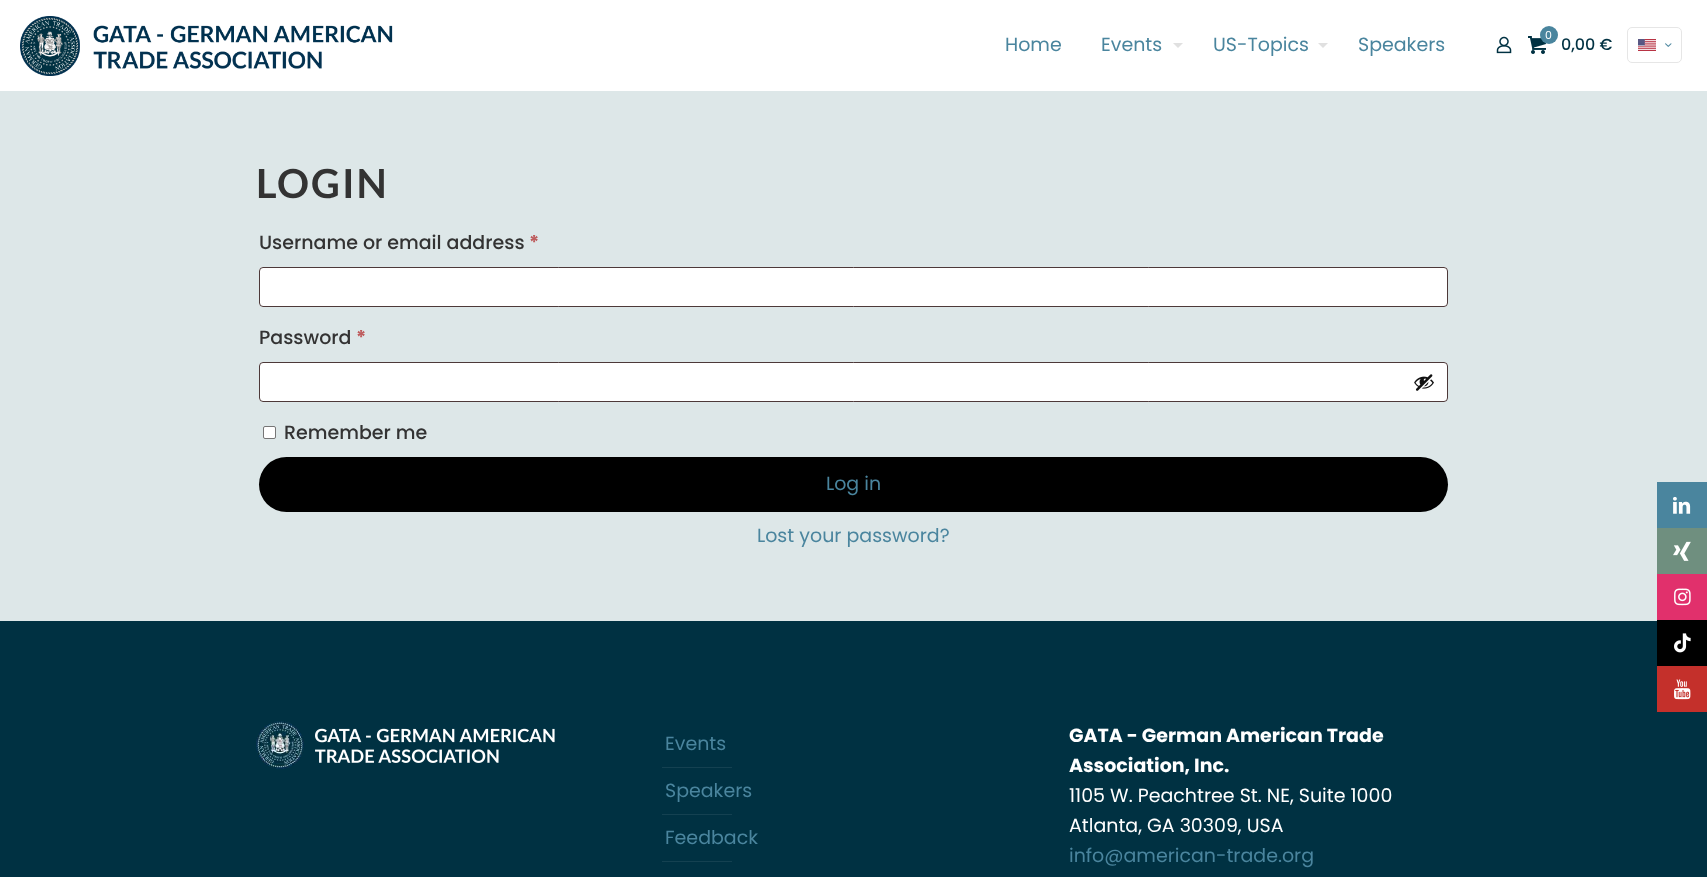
async function draw(canvas) {
  canvas.width = 1707;
  canvas.height = 877;
  const ctx = canvas.getContext('2d');
  ctx.miterLimit = 4;
  ctx.fontKerning = 'normal';
  function label(s, x, y, font, color) {
    ctx.font = font;
    ctx.fillStyle = color;
    ctx.fillText(s, x, y);
  }
  function rect(x, y, w, h, color) {
    ctx.fillStyle = color;
    ctx.fillRect(x, y, w, h);
  }
  function roundedRect(x, y, w, h, r, color) {
    ctx.fillStyle = color;
    ctx.beginPath();
    ctx.roundRect(x, y, w, h, r);
    ctx.fill();
  }
  async function image(src, x, y, w, h) {
    const img = new Image();
    img.src = src;
    await img.decode();
    ctx.drawImage(img, x, y, w, h);
  }
  let path;

  rect(0, 0, 1707, 877, '#dde7e8');
  rect(0, 0, 1707, 91, '#fff');
  await image('assets/img1.png', 20, 16, 373, 60);
  label('Home', 1005, 51, '19px Poppins', '#4a859e');
  label('Events', 1101, 51, '19px Poppins', '#4a859e');
  ctx.fillStyle = '#e0e0e0';
  path = new Path2D('M1173 43H1183L1178 48Z');
  ctx.fill(path);
  label('US-Topics', 1213, 51, '19px Poppins', '#4a859e');
  ctx.fillStyle = '#e0e0e0';
  path = new Path2D('M1318 43H1328L1323 48Z');
  ctx.fill(path);
  label('Speakers', 1358, 51, '19px Poppins', '#4a859e');
  await image('assets/img2.png', 1496, 36, 16, 18);
  await image('assets/img3.png', 1528, 36, 18, 18);
  ctx.beginPath();
  ctx.arc(1549, 35, 9, 0, 2 * Math.PI);
  ctx.fill();
  label('0', 1545, 39, '11px Poppins', '#fff');
  label('0,00 €', 1561, 50, '500 16px Poppins', '#003142');
  ctx.beginPath();
  ctx.roundRect(1627.5, 27.5, 54, 35, 4.5);
  ctx.strokeStyle = '#e6e6e6';
  ctx.stroke();
  await image('assets/img4.png', 1638, 39, 18, 12);
  await image('assets/img5.png', 1665, 43, 7, 4);
  ctx.letterSpacing = '2px';
  label('LOGIN', 256, 198, 'bold 40px Lato', '#333');
  ctx.letterSpacing = '0px';
  label('Username or email address', 259, 249, '500 19px Poppins', '#333');
  label('*', 529, 249, 'bold 19px Poppins', '#be5c5d');
  roundedRect(259, 267, 1189, 40, 4, '#fff');
  ctx.beginPath();
  ctx.roundRect(259.5, 267.5, 1188, 39, 3.5);
  ctx.strokeStyle = '#200707cc';
  ctx.stroke();
  label('Password', 259, 344, '500 19px Poppins', '#333');
  label('*', 356, 344, 'bold 19px Poppins', '#be5c5d');
  roundedRect(259, 362, 1189, 40, 4, '#fff');
  ctx.beginPath();
  ctx.roundRect(259.5, 362.5, 1188, 39, 3.5);
  ctx.stroke();
  await image('assets/img6.png', 1414, 374, 20, 17);
  ctx.beginPath();
  ctx.roundRect(263.5, 426.5, 12, 12, 1.5);
  ctx.fill();
  ctx.strokeStyle = '#767676';
  ctx.stroke();
  label('Remember me', 284, 439, '500 19px Poppins', '#333');
  roundedRect(259, 457, 1189, 55, 27.5, '#000');
  label('Log in', 826, 490, '19px Poppins', '#4a859e');
  label('Lost your password?', 757, 542, '19px Poppins', '#4a859e');
  rect(0, 621, 1707, 256, '#003142');
  await image('assets/img7.png', 256, 721, 299, 48);
  label('Events', 665, 750, '19px Poppins', '#4a859e');
  rect(662, 767, 70, 1, '#144151');
  label('Speakers', 665, 797, '19px Poppins', '#4a859e');
  rect(662, 814, 70, 1, '#144151');
  label('Feedback', 665, 844, '19px Poppins', '#4a859e');
  rect(662, 861, 70, 1, '#144151');
  label('GATA - German American Trade', 1069, 742, 'bold 19px Poppins', '#fff');
  label('Association, Inc.', 1069, 772, 'bold 19px Poppins', '#fff');
  label('1105 W. Peachtree St. NE, Suite 1000', 1069, 802, '19px Poppins', '#fff');
  label('Atlanta, GA 30309, USA', 1069, 832, '19px Poppins', '#fff');
  label('info@american-trade.org', 1069, 862, '19px Poppins', '#4a859e');
  rect(1657, 482, 50, 46, '#4a859e');
  await image('assets/img8.png', 1673, 496, 18, 18);
  rect(1657, 528, 50, 46, '#6f8f7f');
  await image('assets/img9.png', 1673, 541, 18, 20);
  rect(1657, 574, 50, 46, '#e1306c');
  await image('assets/img10.png', 1674, 588, 17, 18);
  rect(1657, 620, 50, 46, '#000');
  await image('assets/img11.png', 1674, 633, 17, 20);
  rect(1657, 666, 50, 46, '#c4302b');
  await image('assets/img12.png', 1674, 679, 17, 21);
}

draw(document.querySelector('canvas'));
